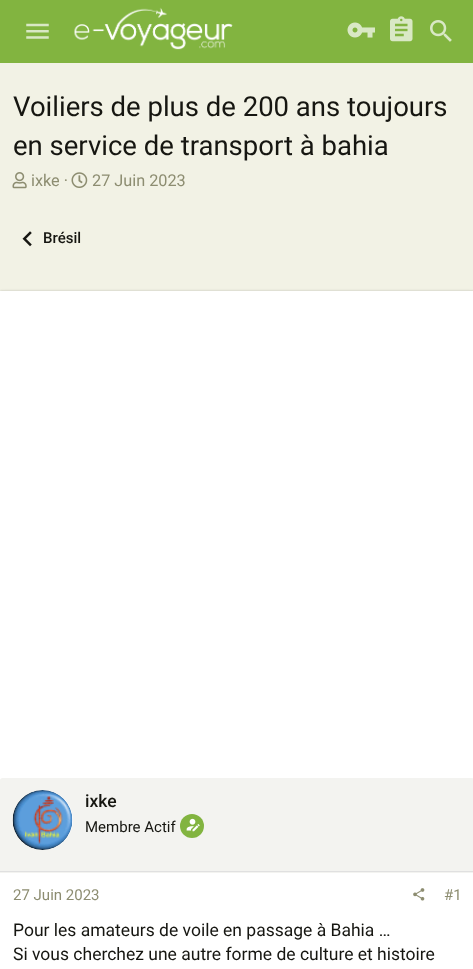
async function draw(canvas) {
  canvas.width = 473;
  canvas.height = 969;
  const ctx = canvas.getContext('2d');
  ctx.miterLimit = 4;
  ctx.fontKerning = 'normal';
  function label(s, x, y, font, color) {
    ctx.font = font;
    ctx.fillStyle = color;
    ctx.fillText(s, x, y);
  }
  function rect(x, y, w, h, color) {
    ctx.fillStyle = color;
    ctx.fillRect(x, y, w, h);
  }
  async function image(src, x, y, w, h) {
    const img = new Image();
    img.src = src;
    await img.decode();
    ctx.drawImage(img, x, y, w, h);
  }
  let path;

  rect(0, 0, 473, 969, '#f2f2e5');
  rect(0, 0, 473, 63, '#82b440');
  await image('assets/img1.png', 26, 23, 23, 16);
  await image('assets/img2.png', 74, 7, 159, 43);
  await image('assets/img3.png', 347, 22, 28, 16);
  await image('assets/img4.png', 390, 16, 23, 26);
  await image('assets/img5.png', 430, 20, 22, 22);
  label('Voiliers de plus de 200 ans toujours', 13, 116, '27.5px Roboto', '#161611');
  label('en service de transport à bahia', 13, 155, '27.5px Roboto', '#161611');
  await image('assets/img6.png', 12, 172, 15, 17);
  label('ixke ·', 31, 186, '16.25px Roboto', '#8d8d71');
  await image('assets/img7.png', 71, 172, 17, 16);
  label('27 Juin 2023', 92, 186, '16.25px Roboto', '#8d8d71');
  await image('assets/img8.png', 22, 231, 10, 16);
  label('Brésil', 43, 243, '500 15px Roboto', '#161611');
  ctx.fillStyle = '#00000033';
  ctx.filter = 'blur(2px)';
  ctx.beginPath();
  ctx.rect(0, 293, 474, 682);
  ctx.fill();
  ctx.filter = 'none';
  ctx.fillStyle = '#00000024';
  ctx.filter = 'blur(1px)';
  ctx.beginPath();
  ctx.rect(0, 291, 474, 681);
  ctx.fill();
  ctx.filter = 'none';
  rect(0, 291, 473, 678, '#fff');
  ctx.fillStyle = '#f3f3f0';
  path = new Path2D('M2.5 778H471.5C473 778 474 779 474 780.5V873H0V780.5C0 779 1 778 2.5 778Z');
  ctx.fill(path);
  rect(0, 871, 473, 1, '#e0e0e0');
  ctx.fillStyle = '#fff';
  ctx.beginPath();
  ctx.arc(43, 820, 30, 0, 2 * Math.PI);
  ctx.fill();
  await image('assets/img9.png', 12, 790, 61, 60);
  label('ixke', 85, 807, '500 17.5px Roboto', '#161611');
  label('Membre Actif', 85, 832, '15px Roboto', '#161611');
  ctx.fillStyle = '#82b440';
  ctx.beginPath();
  ctx.arc(192, 826, 12, 0, 2 * Math.PI);
  ctx.fill();
  await image('assets/img10.png', 186, 818, 14, 14);
  label('27 Juin 2023', 13, 900, '15px Roboto', '#8d8d71');
  await image('assets/img11.png', 413, 888, 12, 13);
  label('#1', 444, 900, '15px Roboto', '#8d8d71');
  label('Pour les amateurs de voile en passage à Bahia …', 13, 936, '17.5px Roboto', '#161611');
  label('Si vous cherchez une autre forme de culture et histoire', 13, 960, '17.5px Roboto', '#161611');
}

draw(document.querySelector('canvas'));
